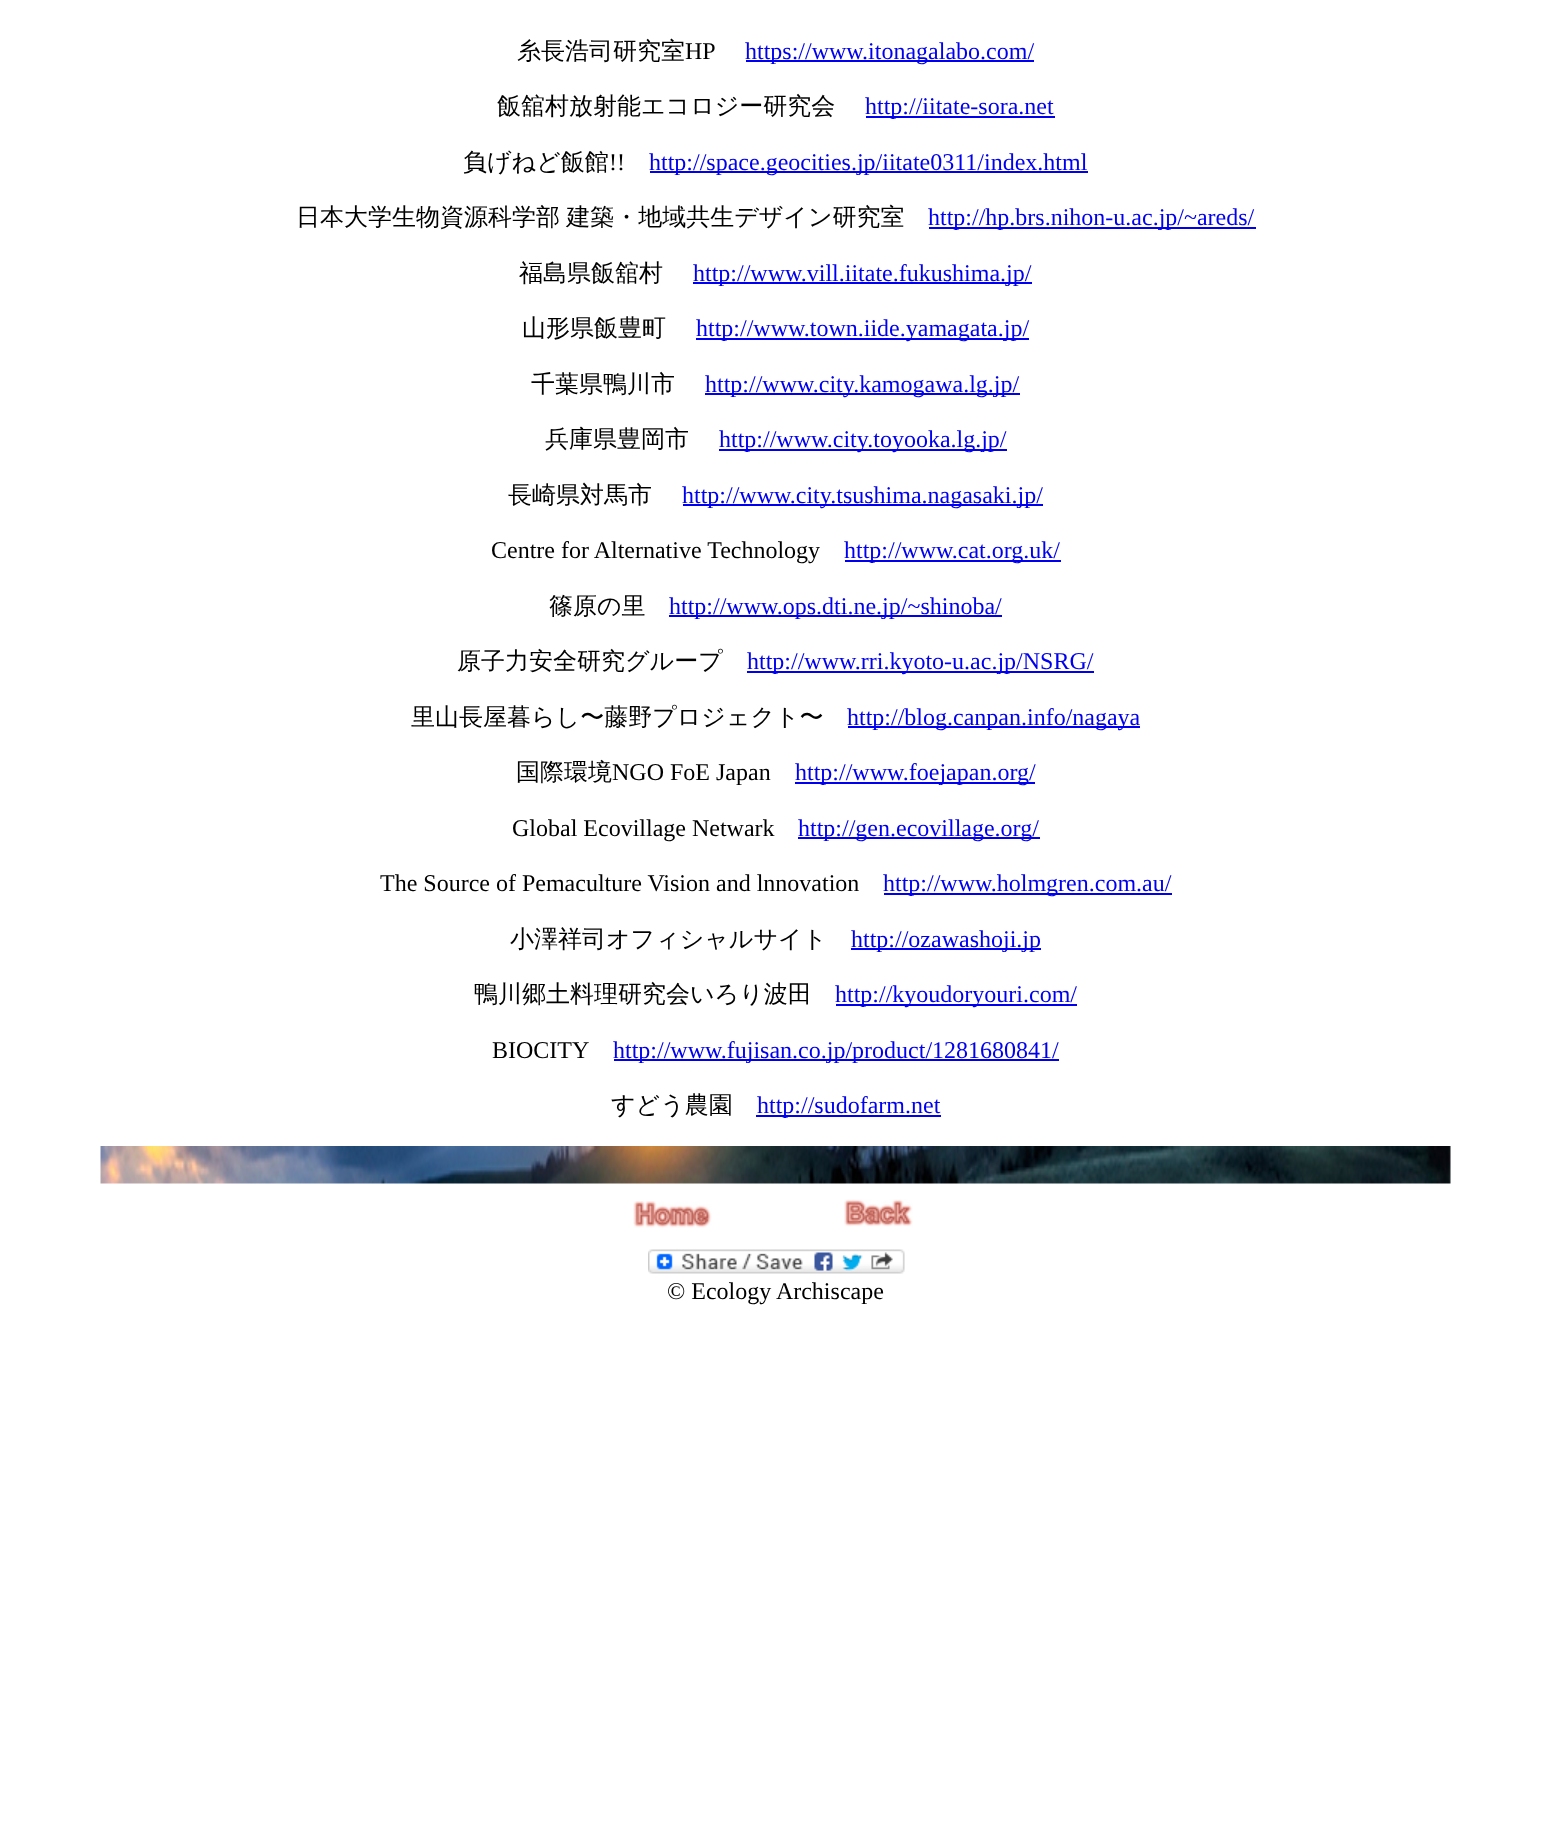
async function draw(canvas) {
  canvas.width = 1551;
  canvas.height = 1821;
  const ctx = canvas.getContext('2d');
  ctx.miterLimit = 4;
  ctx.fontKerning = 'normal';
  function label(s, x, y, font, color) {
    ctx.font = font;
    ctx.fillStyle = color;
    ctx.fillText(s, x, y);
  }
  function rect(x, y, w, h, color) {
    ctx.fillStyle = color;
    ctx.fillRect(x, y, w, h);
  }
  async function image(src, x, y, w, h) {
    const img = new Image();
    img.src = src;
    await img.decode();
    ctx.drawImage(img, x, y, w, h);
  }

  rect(0, 0, 1551, 1821, '#fff');
  label('糸長浩司研究室', 517, 59, '500 24px WenQuanYi Zen Hei', '#000');
  label('HP', 685, 59, '24px Liberation Serif', '#000');
  rect(746, 60, 288, 2, '#00e');
  label('https://www.itonagalabo.com/', 745, 59, '24px Liberation Serif', '#00e');
  label('飯舘村放射能エコロジー研究会', 497, 114, '500 24px WenQuanYi Zen Hei', '#000');
  rect(866, 116, 189, 2, '#00e');
  label('http://iitate-sora.net', 865, 114, '24px Liberation Serif', '#00e');
  label('負げねど飯館', 463, 170, '500 24px WenQuanYi Zen Hei', '#000');
  label('!!', 609, 170, '24px Liberation Serif', '#000');
  rect(650, 171, 438, 2, '#00e');
  label('http://space.geocities.jp/iitate0311/index.html', 649, 170, '24px Liberation Serif', '#00e');
  ctx.wordSpacing = '-1px';
  label('日本大学生物資源科学部 建築・地域共生デザイン研究室', 296, 225, '500 24px WenQuanYi Zen Hei', '#000');
  rect(929, 227, 327, 2, '#00e');
  ctx.wordSpacing = '0px';
  label('http://hp.brs.nihon-u.ac.jp/~areds/', 928, 225, '24px Liberation Serif', '#00e');
  label('福島県飯舘村', 519, 281, '500 24px WenQuanYi Zen Hei', '#000');
  rect(693, 282, 339, 2, '#00e');
  label('http://www.vill.iitate.fukushima.jp/', 693, 281, '24px Liberation Serif', '#00e');
  label('山形県飯豊町', 522, 336, '500 24px WenQuanYi Zen Hei', '#000');
  rect(696, 338, 333, 2, '#00e');
  label('http://www.town.iide.yamagata.jp/', 696, 336, '24px Liberation Serif', '#00e');
  label('千葉県鴨川市', 531, 392, '500 24px WenQuanYi Zen Hei', '#000');
  rect(705, 393, 315, 2, '#00e');
  label('http://www.city.kamogawa.lg.jp/', 705, 392, '24px Liberation Serif', '#00e');
  label('兵庫県豊岡市', 545, 447, '500 24px WenQuanYi Zen Hei', '#000');
  rect(719, 449, 288, 2, '#00e');
  label('http://www.city.toyooka.lg.jp/', 719, 447, '24px Liberation Serif', '#00e');
  label('長崎県対馬市', 508, 503, '500 24px WenQuanYi Zen Hei', '#000');
  rect(683, 504, 360, 2, '#00e');
  label('http://www.city.tsushima.nagasaki.jp/', 682, 503, '24px Liberation Serif', '#00e');
  label('Centre for Alternative Technology', 491, 558, '24px Liberation Serif', '#000');
  rect(845, 560, 216, 2, '#00e');
  label('http://www.cat.org.uk/', 844, 558, '24px Liberation Serif', '#00e');
  label('篠原の里', 549, 614, '500 24px WenQuanYi Zen Hei', '#000');
  rect(669, 615, 333, 2, '#00e');
  label('http://www.ops.dti.ne.jp/~shinoba/', 669, 614, '24px Liberation Serif', '#00e');
  label('原子力安全研究グループ', 457, 669, '500 24px WenQuanYi Zen Hei', '#000');
  rect(747, 671, 347, 2, '#00e');
  label('http://www.rri.kyoto-u.ac.jp/NSRG/', 747, 669, '24px Liberation Serif', '#00e');
  label('里山長屋暮らし〜藤野プロジェクト〜', 411, 725, '500 24px WenQuanYi Zen Hei', '#000');
  rect(848, 726, 292, 2, '#00e');
  label('http://blog.canpan.info/nagaya', 847, 725, '24px Liberation Serif', '#00e');
  label('国際環境', 516, 780, '500 24px WenQuanYi Zen Hei', '#000');
  label('NGO FoE Japan', 612, 780, '24px Liberation Serif', '#000');
  rect(795, 782, 240, 2, '#00e');
  label('http://www.foejapan.org/', 795, 780, '24px Liberation Serif', '#00e');
  label('Global Ecovillage Netwark', 512, 836, '24px Liberation Serif', '#000');
  rect(798, 837, 242, 2, '#00e');
  label('http://gen.ecovillage.org/', 798, 836, '24px Liberation Serif', '#00e');
  label('The Source of Pemaculture Vision and lnnovation', 380, 891, '24px Liberation Serif', '#000');
  rect(884, 893, 288, 2, '#00e');
  label('http://www.holmgren.com.au/', 883, 891, '24px Liberation Serif', '#00e');
  label('小澤祥司オフィシャルサイト', 510, 947, '500 24px WenQuanYi Zen Hei', '#000');
  rect(851, 948, 190, 2, '#00e');
  label('http://ozawashoji.jp', 851, 947, '24px Liberation Serif', '#00e');
  label('鴨川郷土料理研究会いろり波田', 474, 1002, '500 24px WenQuanYi Zen Hei', '#000');
  rect(836, 1004, 241, 2, '#00e');
  label('http://kyoudoryouri.com/', 835, 1002, '24px Liberation Serif', '#00e');
  label('BIOCITY', 492, 1058, '24px Liberation Serif', '#000');
  rect(614, 1059, 445, 2, '#00e');
  label('http://www.fujisan.co.jp/product/1281680841/', 613, 1058, '24px Liberation Serif', '#00e');
  label('すどう農園', 611, 1113, '500 24px WenQuanYi Zen Hei', '#000');
  rect(756, 1115, 185, 2, '#00e');
  label('http://sudofarm.net', 757, 1113, '24px Liberation Serif', '#00e');
  await image('assets/img1.png', 100, 1146, 1351, 38);
  await image('assets/img2.png', 633, 1201, 79, 27);
  await image('assets/img3.png', 844, 1199, 69, 28);
  await image('assets/img4.png', 648, 1249, 257, 25);
  label('© Ecology Archiscape', 667, 1299, '24px Liberation Serif', '#000');
}

draw(document.querySelector('canvas'));
